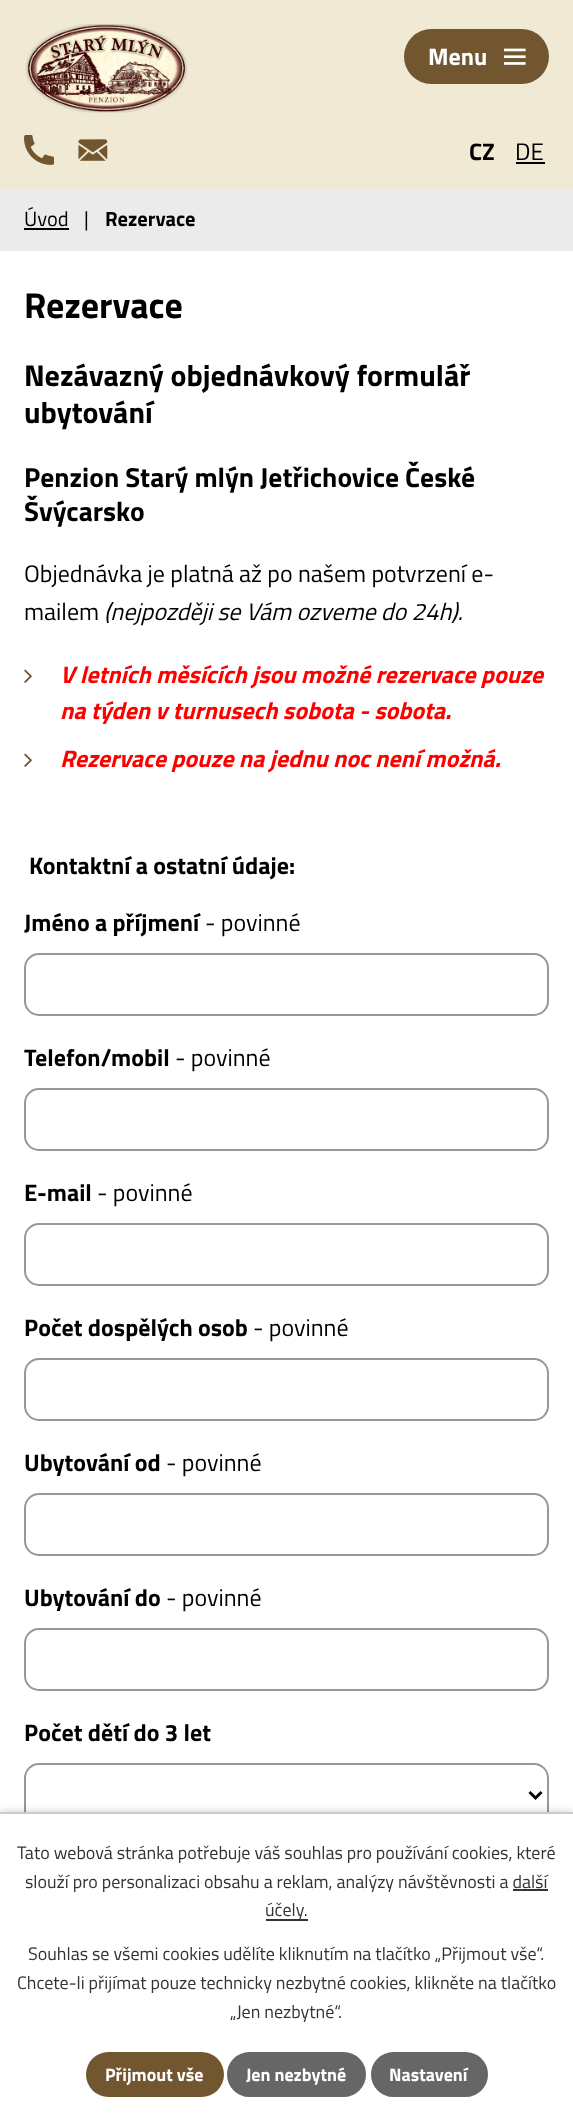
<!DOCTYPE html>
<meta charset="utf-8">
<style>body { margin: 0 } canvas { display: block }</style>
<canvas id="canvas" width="573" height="2118"></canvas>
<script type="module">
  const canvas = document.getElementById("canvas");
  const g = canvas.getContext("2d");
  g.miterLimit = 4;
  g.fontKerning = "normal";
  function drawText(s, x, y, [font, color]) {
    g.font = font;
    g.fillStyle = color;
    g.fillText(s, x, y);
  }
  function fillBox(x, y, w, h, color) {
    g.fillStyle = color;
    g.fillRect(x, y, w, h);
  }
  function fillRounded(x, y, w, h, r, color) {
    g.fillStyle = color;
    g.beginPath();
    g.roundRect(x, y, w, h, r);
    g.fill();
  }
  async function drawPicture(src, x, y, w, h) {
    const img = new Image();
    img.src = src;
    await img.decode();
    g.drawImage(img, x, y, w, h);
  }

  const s1 = ["bold 24px Titillium Web", "#FFFFFF"];
  const s2 = ["bold 24px Titillium Web", "#000000"];
  const s3 = ["24px Titillium Web", "#000000"];
  const s4 = ["20.5px Titillium Web", "#000000"];
  const s5 = ["bold 20.5px Titillium Web", "#000000"];
  const s6 = ["bold 36px Titillium Web", "#000000"];
  const s7 = ["bold 30px Titillium Web", "#000000"];
  const s8 = ["bold 27.6px Titillium Web", "#000000"];
  const s9 = ["italic 24px Titillium Web", "#000000"];
  const s10 = ["italic bold 24px Titillium Web", "#FF0000"];
  const s11 = ["18px Titillium Web", "#333333"];
  const s12 = ["bold 18px Titillium Web", "#FFFFFF"];

  fillBox(0, 0, 573, 2118, "#FFFFFF");
  fillBox(0, 0, 573, 189, "#F0EAD5");
  fillRounded(404, 29, 145, 55, 27.5, "#71562F");
  drawText("Menu", 428, 65, s1);
  await drawPicture("pic1.png", 504, 48, 22, 17);
  await drawPicture("pic2.png", 25, 24, 163, 89);
  await drawPicture("pic3.png", 24, 135, 30, 30);
  await drawPicture("pic4.png", 78, 139, 30, 22);
  drawText("CZ", 469, 160, s2);
  fillBox(516, 162, 29, 2, "#000000");
  drawText("DE", 515, 160, s3);
  fillBox(0, 189, 573, 62, "#EBEBEB");
  drawText("Úvod", 24, 226, s4);
  fillBox(24, 228, 45, 2, "#000000");
  drawText("|", 84, 226, s4);
  drawText("Rezervace", 105, 226, s5);
  drawText("Rezervace", 24, 318, s6);
  drawText("Nezávazný objednávkový formulář", 24, 386, s7);
  drawText("ubytování", 24, 423, s7);
  drawText("Penzion Starý mlýn Jetřichovice České", 24, 487, s8);
  drawText("Švýcarsko", 24, 521, s8);
  drawText("Objednávka je platná až po našem potvrzení e-", 24, 582, s3);
  drawText("mailem", 24, 620, s3);
  drawText("(nejpozději se Vám ozveme do 24h).", 104, 620, s9);
  await drawPicture("pic5.png", 24, 669, 8, 14);
  drawText("V letních měsících jsou možné rezervace pouze", 60, 683, s10);
  drawText("na týden v turnusech sobota - sobota.", 60, 719, s10);
  await drawPicture("pic5.png", 24, 753, 8, 14);
  drawText("Rezervace pouze na jednu noc není možná.", 60, 767, s10);
  drawText("Kontaktní a ostatní údaje:", 29, 874, s2);
  drawText("Jméno a příjmení", 24, 931, s2);
  drawText("- povinné", 205, 931, s3);
  g.beginPath();
  g.roundRect(25, 954, 523, 61, 14);
  g.strokeStyle = "#95989A";
  g.lineWidth = 2;
  g.stroke();
  drawText("Telefon/mobil", 24, 1066, s2);
  drawText("- povinné", 175, 1066, s3);
  g.beginPath();
  g.roundRect(25, 1089, 523, 61, 14);
  g.stroke();
  drawText("E-mail", 24, 1201, s2);
  drawText("- povinné", 97, 1201, s3);
  g.beginPath();
  g.roundRect(25, 1224, 523, 61, 14);
  g.stroke();
  drawText("Počet dospělých osob", 24, 1336, s2);
  drawText("- povinné", 253, 1336, s3);
  g.beginPath();
  g.roundRect(25, 1359, 523, 61, 14);
  g.stroke();
  drawText("Ubytování od", 24, 1471, s2);
  drawText("- povinné", 166, 1471, s3);
  g.beginPath();
  g.roundRect(25, 1494, 523, 61, 14);
  g.stroke();
  drawText("Ubytování do", 24, 1606, s2);
  drawText("- povinné", 166, 1606, s3);
  g.beginPath();
  g.roundRect(25, 1629, 523, 61, 14);
  g.stroke();
  drawText("Počet dětí do 3 let", 24, 1741, s2);
  g.beginPath();
  g.roundRect(25, 1764, 523, 64, 14);
  g.stroke();
  g.beginPath();
  g.moveTo(529.5, 1792);
  g.lineTo(535.5, 1798);
  g.lineTo(541.5, 1792);
  g.strokeStyle = "#000000";
  g.lineWidth = 3;
  g.stroke();
  g.fillStyle = "rgba(0, 0, 0, 0.2)";
  g.filter = "blur(4px)";
  g.beginPath();
  g.rect(0, 1812, 573, 306);
  g.fill();
  g.filter = "none";
  fillBox(0, 1814, 573, 304, "#FFFFFF");
  fillBox(0, 1812, 573, 2, "#CCCCCC");
  drawText("Tato webová stránka potřebuje váš souhlas pro používání cookies, které", 17, 1859, s11);
  drawText("slouží pro personalizaci obsahu a reklam, analýzy návštěvnosti a další", 25, 1888, s11);
  fillBox(266, 1919, 42, 2, "#333333");
  drawText("účely.", 265, 1916, s11);
  fillBox(513, 1889, 35, 2, "#333333");
  drawText("Souhlas se všemi cookies udělíte kliknutím na tlačítko „Přijmout vše“.", 28, 1960, s11);
  drawText("Chcete-li přijímat pouze technicky nezbytné cookies, klikněte na tlačítko", 17, 1989, s11);
  drawText("„Jen nezbytné“.", 230, 2018, s11);
  fillRounded(86, 2052, 138, 45, 22.5, "#71562F");
  drawText("Přijmout vše", 105, 2081, s12);
  g.fillStyle = "#666666";
  g.beginPath();
  g.roundRect(228, 2053, 137, 43, 21.5);
  g.fill();
  g.strokeStyle = "#666666";
  g.lineWidth = 2;
  g.stroke();
  drawText("Jen nezbytné", 246, 2081, s12);
  g.fillStyle = "#666666";
  g.beginPath();
  g.roundRect(372, 2053, 115, 43, 21.5);
  g.fill();
  g.stroke();
  drawText("Nastavení", 389, 2081, s12);
</script>
